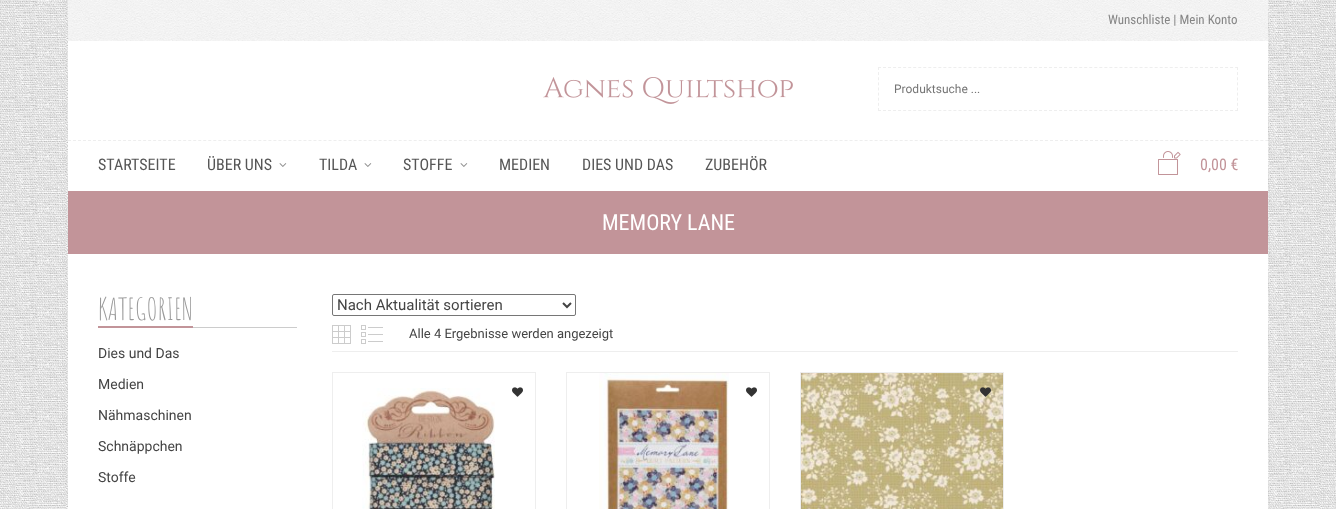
<!DOCTYPE html>
<meta charset="utf-8">
<style>body { margin: 0 } canvas { display: block }</style>
<canvas id="canvas" width="1336" height="509"></canvas>
<script type="module">
  const canvas = document.getElementById("canvas");
  const g = canvas.getContext("2d");
  g.miterLimit = 4;
  g.fontKerning = "normal";
  function drawText(s, x, y, [font, color]) {
    g.font = font;
    g.fillStyle = color;
    g.fillText(s, x, y);
  }
  function fillBox(x, y, w, h, color) {
    g.fillStyle = color;
    g.fillRect(x, y, w, h);
  }
  async function drawPicture(src, x, y, w, h) {
    const img = new Image();
    img.src = src;
    await img.decode();
    g.drawImage(img, x, y, w, h);
  }

  const s1 = ["13px Roboto Condensed", "#858585"];
  const s2 = ["12px Roboto", "#757575"];
  const s3 = ["16px Roboto Condensed", "#565656"];
  const s4 = ["16px Roboto Condensed", "#C29499"];
  const s5 = ["22px Roboto Condensed", "#FFFFFF"];
  const s6 = ["30px Amatic SC", "#999999"];
  const s7 = ["14px Roboto", "#444444"];
  const s8 = ["15px Roboto", "#444444"];
  const s9 = ["13px Roboto", "#444444"];

  fillBox(0, 0, 1336, 509, "#FFFFFF");
  await drawPicture("pic1.png", 0, 0, 1336, 509);
  fillBox(68, 41, 1200, 468, "#FFFFFF");
  await drawPicture("pic2.png", 68, 0, 1200, 41);
  drawText("Wunschliste | Mein Konto", 1108, 24, s1);
  g.beginPath();
  g.moveTo(68, 140.5);
  g.lineTo(1268, 140.5);
  g.strokeStyle = "#EEEEEE";
  g.setLineDash([3, 2.01]);
  g.stroke();
  await drawPicture("pic3.png", 543, 77, 250, 27);
  g.beginPath();
  g.moveTo(878, 67.5);
  g.lineTo(1238, 67.5);
  g.setLineDash([3, 2.03]);
  g.stroke();
  g.beginPath();
  g.moveTo(1237.5, 67);
  g.lineTo(1237.5, 111);
  g.setLineDash([3, 2.12]);
  g.stroke();
  g.beginPath();
  g.moveTo(878, 110.5);
  g.lineTo(1238, 110.5);
  g.setLineDash([3, 2.03]);
  g.stroke();
  g.beginPath();
  g.moveTo(878.5, 67);
  g.lineTo(878.5, 111);
  g.setLineDash([3, 2.12]);
  g.stroke();
  drawText("Produktsuche ...", 894, 93, s2);
  drawText("STARTSEITE", 98, 170, s3);
  drawText("ÜBER UNS", 207, 170, s3);
  await drawPicture("pic4.png", 279, 163, 8, 4);
  drawText("TILDA", 319, 170, s3);
  await drawPicture("pic4.png", 364, 163, 8, 4);
  drawText("STOFFE", 403, 170, s3);
  await drawPicture("pic4.png", 460, 163, 8, 4);
  drawText("MEDIEN", 499, 170, s3);
  drawText("DIES UND DAS", 582, 170, s3);
  drawText("ZUBEHÖR", 705, 170, s3);
  await drawPicture("pic5.png", 1158, 151, 23, 24);
  drawText("0,00 €", 1200, 170, s4);
  fillBox(68, 191, 1200, 63, "#C29499");
  drawText("MEMORY LANE", 602, 230, s5);
  fillBox(193, 327, 104, 1, "#CCCCCC");
  fillBox(98, 326, 95, 2, "#C29499");
  drawText("KATEGORIEN", 98, 320, s6);
  drawText("Dies und Das", 98, 358, s7);
  drawText("Medien", 98, 389, s7);
  drawText("Nähmaschinen", 98, 420, s7);
  drawText("Schnäppchen", 98, 451, s7);
  drawText("Stoffe", 98, 482, s7);
  g.beginPath();
  g.roundRect(332.5, 294.5, 243, 21, 1.5);
  g.strokeStyle = "#767676";
  g.setLineDash([]);
  g.stroke();
  g.beginPath();
  g.moveTo(563, 303);
  g.lineTo(567, 307);
  g.lineTo(571, 303);
  g.strokeStyle = "#444444";
  g.lineWidth = 2;
  g.stroke();
  drawText("Nach Aktualität sortieren", 337, 310, s8);
  await drawPicture("pic6.png", 332, 325, 19, 19);
  await drawPicture("pic7.png", 361, 325, 22, 19);
  drawText("Alle 4 Ergebnisse werden angezeigt", 409, 338, s9);
  fillBox(332, 351, 906, 1, "#EEEEEE");
  g.strokeStyle = "#EEEEEE";
  g.lineWidth = 1;
  g.strokeRect(332.5, 372.5, 203, 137);
  await drawPicture("pic8.png", 362, 388, 133, 121);
  await drawPicture("pic9.png", 512, 387, 11, 10);
  g.strokeRect(566.5, 372.5, 203, 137);
  await drawPicture("pic10.png", 599, 373, 130, 136);
  await drawPicture("pic9.png", 746, 387, 11, 10);
  g.strokeRect(800.5, 372.5, 203, 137);
  await drawPicture("pic11.png", 801, 373, 202, 136);
  await drawPicture("pic12.png", 980, 387, 11, 10);
</script>
